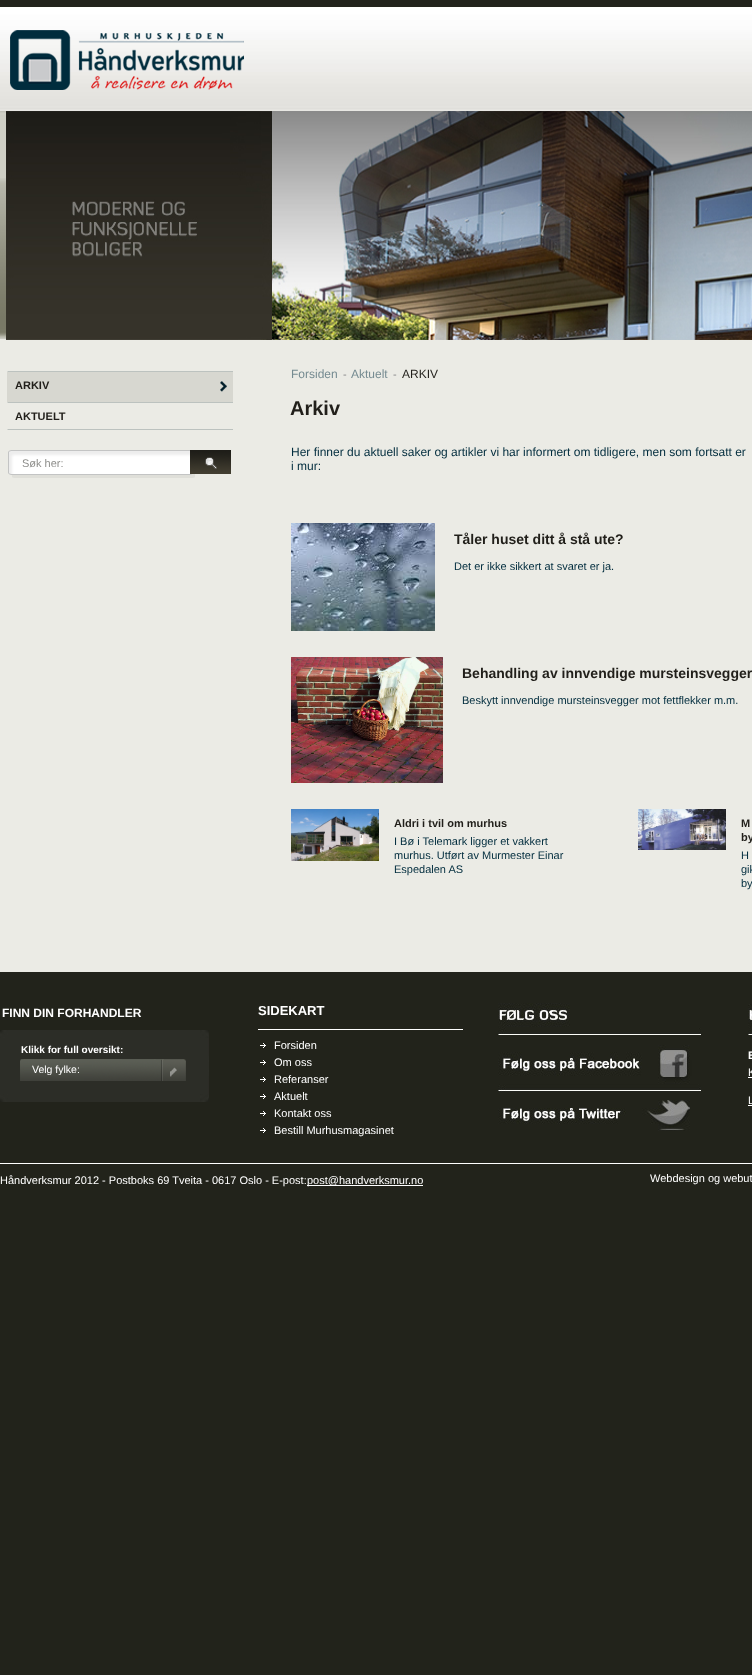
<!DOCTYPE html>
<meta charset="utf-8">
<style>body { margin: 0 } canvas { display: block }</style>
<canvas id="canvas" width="752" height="1675"></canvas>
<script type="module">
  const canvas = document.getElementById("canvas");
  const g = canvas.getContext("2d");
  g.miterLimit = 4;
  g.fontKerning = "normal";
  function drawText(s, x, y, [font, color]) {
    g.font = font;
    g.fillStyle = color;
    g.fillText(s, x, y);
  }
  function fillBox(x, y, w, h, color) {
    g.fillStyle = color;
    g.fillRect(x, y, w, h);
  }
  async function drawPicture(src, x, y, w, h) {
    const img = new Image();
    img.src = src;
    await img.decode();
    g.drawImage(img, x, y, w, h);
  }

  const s1 = ["bold 11px Liberation Sans", "#211F1A"];
  const s2 = ["11px Liberation Sans", "#8E8E8B"];
  const s3 = ["12px Liberation Sans", "#758B91"];
  const s4 = ["11px Liberation Sans", "#878787"];
  const s5 = ["12px Liberation Sans", "#211F1A"];
  const s6 = ["bold 20px Liberation Sans", "#211F1A"];
  const s7 = ["12px Liberation Sans", "#002C3D"];
  const s8 = ["bold 14px Liberation Sans", "#211F1A"];
  const s9 = ["11px Liberation Sans", "#002C3D"];
  const s10 = ["bold 12px Liberation Sans", "#FFFFFF"];
  const s11 = ["bold 10px Liberation Sans", "#FFFFFF"];
  const s12 = ["10.5px Liberation Sans", "#FFFFFF"];
  const s13 = ["bold 13px Liberation Sans", "#FFFFFF"];
  const s14 = ["11px Liberation Sans", "#FFFFFF"];
  const s15 = ["bold 11px Liberation Sans", "#FFFFFF"];

  fillBox(0, 0, 752, 1675, "#22231B");
  await drawPicture("pic1.png", 0, 7, 752, 104);
  await drawPicture("pic2.png", 10, 30, 234, 60);
  fillBox(0, 339, 752, 633, "#EBEBE5");
  await drawPicture("pic3.png", 0, 111, 6, 228);
  await drawPicture("pic4.png", 0, 178, 6, 161);
  await drawPicture("pic5.png", 6, 111, 746, 229);
  await drawPicture("pic6.png", 7, 371, 226, 1);
  fillBox(7, 372, 226, 30, "#D7D7D0");
  drawText("ARKIV", 15, 389, s1);
  await drawPicture("pic7.png", 220, 381, 7, 11);
  await drawPicture("pic6.png", 7, 402, 226, 1);
  drawText("AKTUELT", 15, 420, s1);
  await drawPicture("pic6.png", 7, 429, 226, 1);
  await drawPicture("pic8.png", 8, 450, 187, 28);
  drawText("Søk her:", 22, 467, s2);
  await drawPicture("pic9.png", 190, 450, 41, 24);
  drawText("Forsiden", 291, 378, s3);
  drawText("-", 343, 378, s4);
  drawText("Aktuelt", 351, 378, s3);
  drawText("-", 393, 378, s4);
  drawText("ARKIV", 402, 378, s5);
  drawText("Arkiv", 290, 415, s6);
  drawText("Her finner du aktuell saker og artikler vi har informert om tidligere, men som fortsatt er", 291, 456, s7);
  drawText("i mur:", 291, 470, s7);
  await drawPicture("pic10.png", 291, 523, 144, 108);
  drawText("Tåler huset ditt å stå ute?", 454, 544, s8);
  drawText("Det er ikke sikkert at svaret er ja.", 454, 570, s9);
  await drawPicture("pic11.png", 291, 657, 152, 126);
  drawText("Behandling av innvendige mursteinsvegger", 462, 678, s8);
  drawText("Beskytt innvendige mursteinsvegger mot fettflekker m.m.", 462, 704, s9);
  await drawPicture("pic12.png", 291, 809, 88, 52);
  drawText("Aldri i tvil om murhus", 394, 827, s1);
  drawText("I Bø i Telemark ligger et vakkert", 394, 845, s9);
  drawText("murhus. Utført av Murmester Einar", 394, 859, s9);
  drawText("Espedalen AS", 394, 873, s9);
  await drawPicture("pic13.png", 638, 809, 88, 41);
  drawText("M", 741, 827, s1);
  drawText("by", 741, 841, s1);
  drawText("H", 741, 859, s9);
  drawText("gik", 741, 873, s9);
  drawText("by", 741, 887, s9);
  drawText("FINN DIN FORHANDLER", 2, 1017, s10);
  await drawPicture("pic14.png", 0, 1030, 209, 72);
  drawText("Klikk for full oversikt:", 21, 1053, s11);
  await drawPicture("pic15.png", 20, 1059, 150, 22);
  g.save();
  g.beginPath();
  g.rect(32, 1063, 150, 12);
  g.clip();
  drawText("Velg fylke:", 32, 1073, s12);
  g.restore();
  await drawPicture("pic16.png", 170, 1059, 16, 22);
  drawText("SIDEKART", 258, 1015, s13);
  fillBox(258, 1029, 205, 1, "#FFFFFF");
  await drawPicture("pic17.png", 260, 1043, 6, 5);
  drawText("Forsiden", 274, 1049, s14);
  await drawPicture("pic17.png", 260, 1060, 6, 5);
  drawText("Om oss", 274, 1066, s14);
  await drawPicture("pic17.png", 260, 1077, 6, 5);
  drawText("Referanser", 274, 1083, s14);
  await drawPicture("pic17.png", 260, 1094, 6, 5);
  drawText("Aktuelt", 274, 1100, s14);
  await drawPicture("pic17.png", 260, 1111, 6, 5);
  drawText("Kontakt oss", 274, 1117, s14);
  await drawPicture("pic17.png", 260, 1128, 6, 5);
  drawText("Bestill Murhusmagasinet", 274, 1134, s14);
  await drawPicture("pic18.png", 498, 1003, 203, 32);
  await drawPicture("pic19.png", 498, 1045, 203, 47);
  await drawPicture("pic20.png", 498, 1100, 192, 31);
  await drawPicture("pic21.png", 748, 1004, 4, 31);
  drawText("E", 748, 1059, s15);
  drawText("K", 748, 1076, s14);
  fillBox(748, 1077, 4, 1, "#FFFFFF");
  drawText("L", 748, 1104, s14);
  fillBox(748, 1105, 4, 1, "#FFFFFF");
  fillBox(0, 1163, 752, 1, "#FFFFFF");
  drawText("Håndverksmur 2012 - Postboks 69 Tveita - 0617 Oslo - E-post:", 0, 1184, s14);
  fillBox(307, 1185, 116, 1, "#FFFFFF");
  drawText("post@handverksmur.no", 307, 1184, s14);
  drawText("Webdesign og webut", 650, 1182, s14);
</script>
